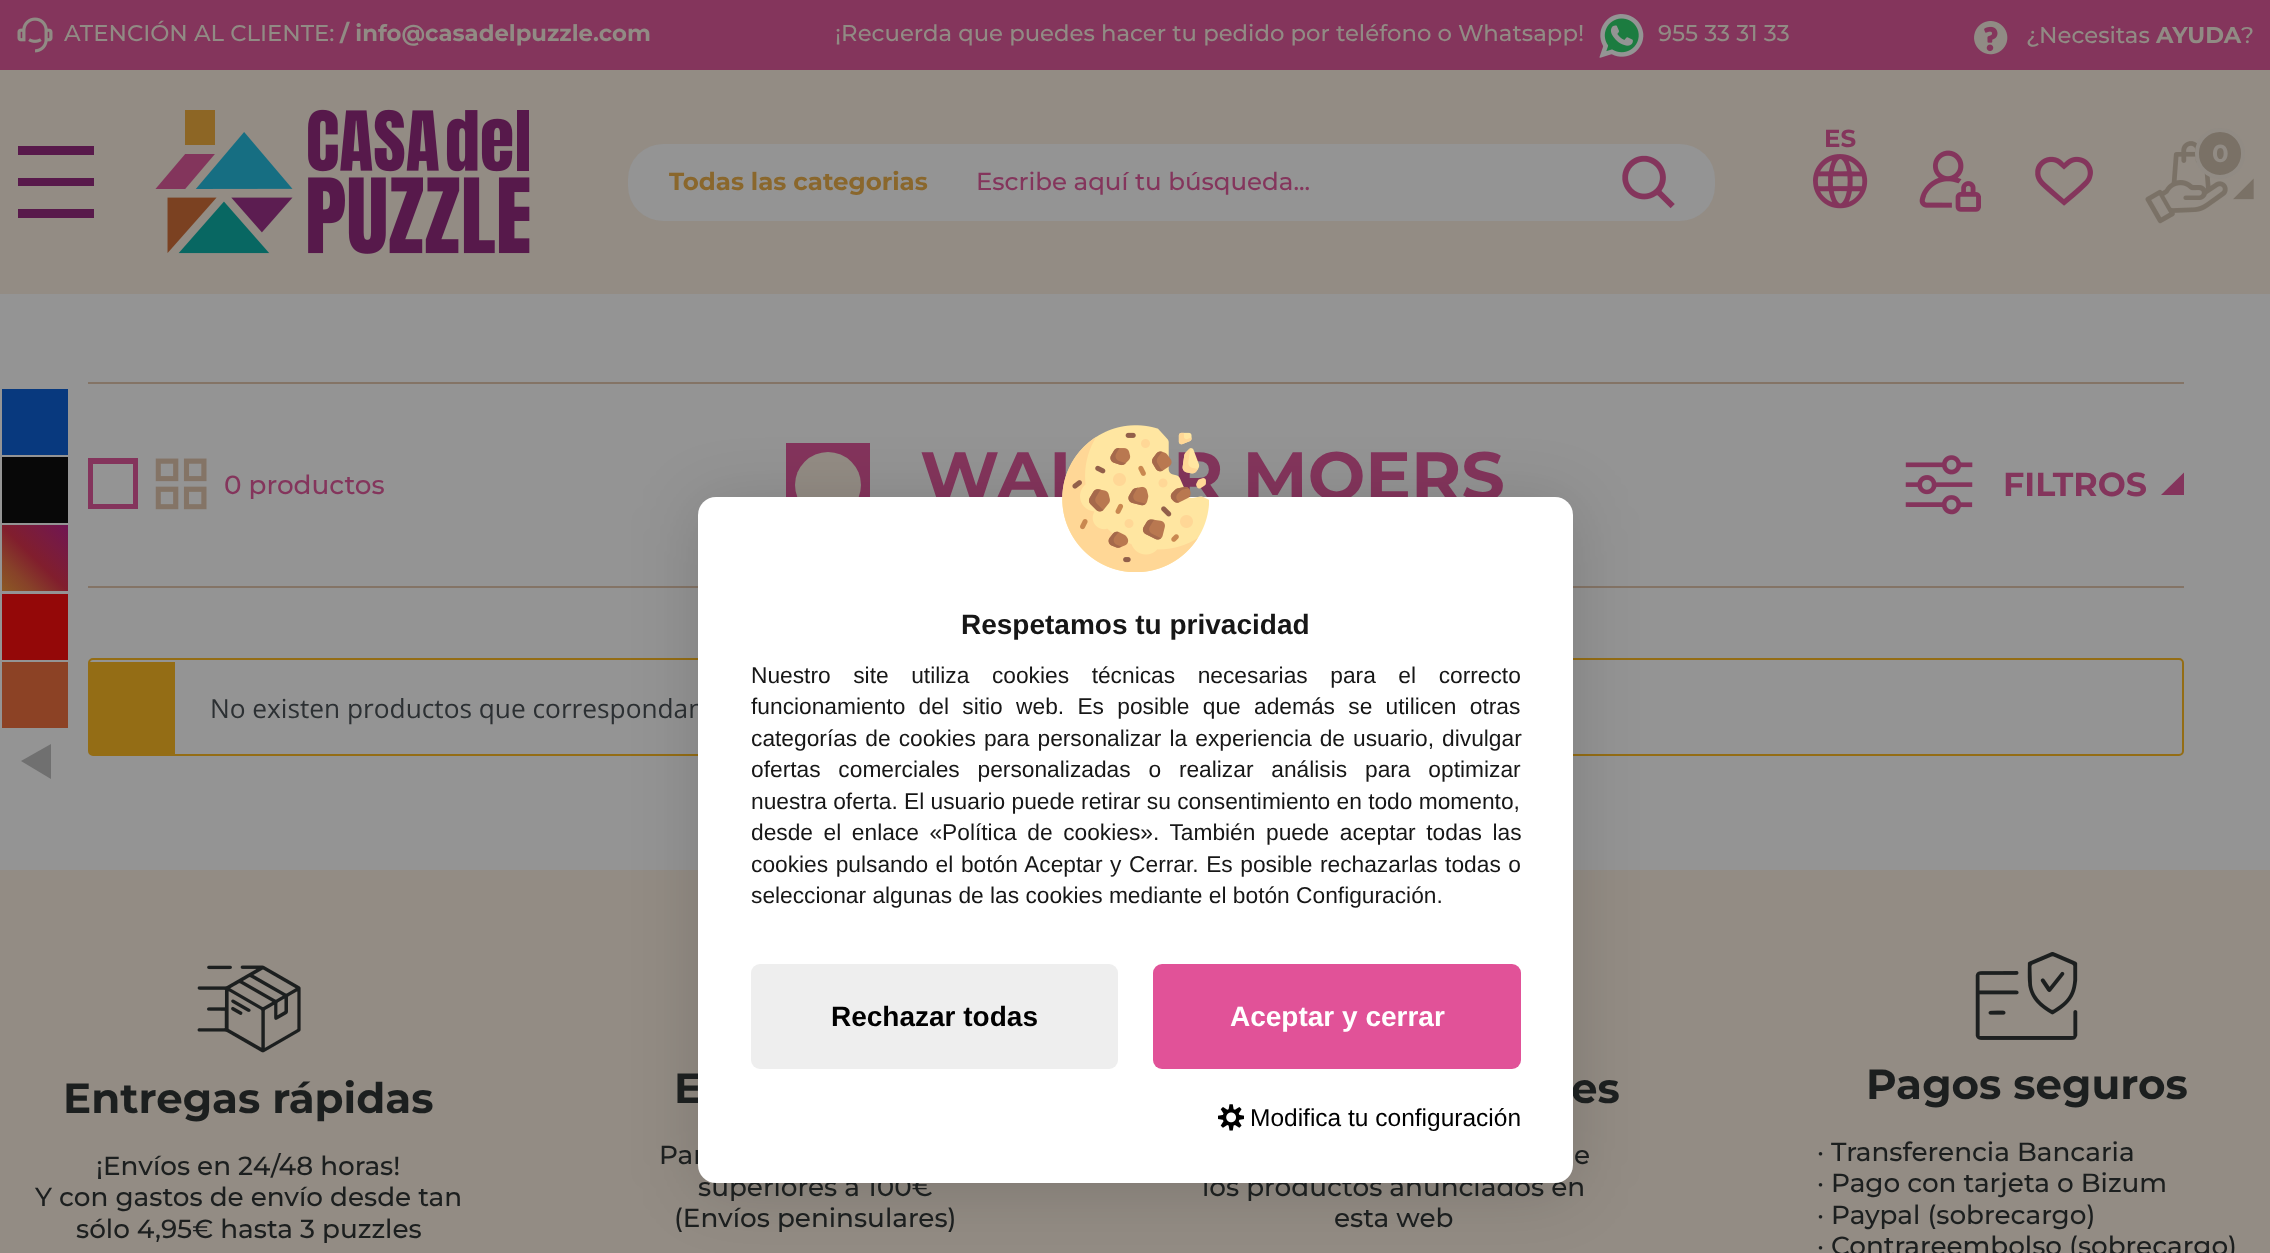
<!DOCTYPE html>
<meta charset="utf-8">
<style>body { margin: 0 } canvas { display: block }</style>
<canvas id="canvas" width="2270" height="1253"></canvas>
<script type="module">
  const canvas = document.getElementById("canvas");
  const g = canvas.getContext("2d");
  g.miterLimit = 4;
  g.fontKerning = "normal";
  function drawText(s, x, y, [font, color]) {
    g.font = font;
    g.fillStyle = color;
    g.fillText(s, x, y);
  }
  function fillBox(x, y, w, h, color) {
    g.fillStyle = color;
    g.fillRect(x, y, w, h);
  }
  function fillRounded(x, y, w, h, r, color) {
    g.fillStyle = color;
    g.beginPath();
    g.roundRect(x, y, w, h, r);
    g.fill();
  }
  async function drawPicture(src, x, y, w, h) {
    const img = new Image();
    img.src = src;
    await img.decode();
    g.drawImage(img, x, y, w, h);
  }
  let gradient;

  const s1 = ["500 22.75px Montserrat", "#918B84"];
  const s2 = ["bold 22.75px Montserrat", "#918B84"];
  const s3 = ["bold 24.5px Montserrat", "#8A672C"];
  const s4 = ["500 24.5px Montserrat", "#84355C"];
  const s5 = ["bold 24.5px Montserrat", "#84355C"];
  const s6 = ["bold 24.5px Montserrat", "#918B84"];
  const s7 = ["500 26.25px Montserrat", "#84355C"];
  const s8 = ["bold 68.25px Montserrat", "#84355C"];
  const s9 = ["bold 33.25px Montserrat", "#84355C"];
  const s10 = ["26.25px Open Sans", "#2C3033"];
  const s11 = ["bold 42px Montserrat", "#1C1F1F"];
  const s12 = ["500 26.25px Montserrat", "#1C1F1F"];
  const s13 = ["bold 28px Liberation Sans", "#171717"];
  const s14 = ["22.75px Liberation Sans", "#171717"];
  const s15 = ["bold 28px Liberation Sans", "#000000"];
  const s16 = ["bold 28px Liberation Sans", "#FFFFFF"];
  const s17 = ["24.5px Liberation Sans", "#000000"];

  fillBox(0, 0, 2270, 1253, "#938C84");
  fillBox(0, 0, 2270, 70, "#84355C");
  await drawPicture("pic1.png", 17, 17, 36, 36);
  drawText("ATENCIÓN AL CLIENTE:", 64, 41, s1);
  drawText("/ info@casadelpuzzle.com", 340, 41, s2);
  drawText("¡Recuerda que puedes hacer tu pedido por teléfono o Whatsapp!", 835, 41, s1);
  gradient = g.createRadialGradient(1621, 36, 0, 1621, 36, 31);
  gradient.addColorStop(0.6, "#1C7C40");
  gradient.addColorStop(0.6, "#84355C");
  g.fillStyle = gradient;
  g.fillRect(1602, 17, 38, 38);
  fillBox(1605, 46, 7, 6, "#1C7C40");
  await drawPicture("pic2.png", 1599, 14, 45, 44);
  drawText("955 33 31 33", 1658, 41, s1);
  await drawPicture("pic3.png", 1974, 21, 34, 34);
  drawText("¿Necesitas", 2026, 43, s1);
  drawText("AYUDA", 2156, 43, s2);
  drawText("?", 2241, 43, s1);
  g.fillStyle = "#58194B";
  g.beginPath();
  g.moveTo(18, 214);
  g.lineTo(18, 209);
  g.lineTo(94, 209);
  g.lineTo(94, 218);
  g.lineTo(18, 218);
  g.closePath();
  g.moveTo(18, 182);
  g.lineTo(18, 178);
  g.lineTo(94, 178);
  g.lineTo(94, 186);
  g.lineTo(18, 186);
  g.closePath();
  g.moveTo(18, 150);
  g.lineTo(18, 146);
  g.lineTo(94, 146);
  g.lineTo(94, 155);
  g.lineTo(18, 155);
  g.closePath();
  g.fill();
  await drawPicture("pic4.png", 155, 109, 375, 145);
  fillRounded(628, 144, 1087, 77, 35, "#949494");
  g.save();
  g.beginPath();
  g.rect(669, 156, 259, 52);
  g.clip();
  drawText("Todas las categorias", 669, 190, s3);
  g.restore();
  drawText("Escribe aquí tu búsqueda...", 976, 190, s4);
  await drawPicture("pic5.png", 1622, 155, 53, 54);
  drawText("ES", 1824, 147, s5);
  await drawPicture("pic6.png", 1813, 154, 55, 55);
  await drawPicture("pic7.png", 1919, 150, 62, 62);
  await drawPicture("pic8.png", 2035, 156, 58, 50);
  await drawPicture("pic9.png", 2145, 141, 109, 83);
  g.fillStyle = "#7A7166";
  g.beginPath();
  g.roundRect(2197, 130, 46, 47, 23);
  g.fill();
  g.strokeStyle = "#918B84";
  g.lineWidth = 4;
  g.stroke();
  drawText("0", 2212, 162, s6);
  fillBox(0, 294, 2270, 576, "#949494");
  fillBox(2, 389, 66, 66, "#08397E");
  fillBox(2, 457, 66, 66, "#080808");
  gradient = g.createLinearGradient(1.8, 592, 68, 525);
  gradient.addColorStop(0, "#8C5A24");
  gradient.addColorStop(0.25, "#874129");
  gradient.addColorStop(0.5, "#811E2D");
  gradient.addColorStop(0.75, "#781B40");
  gradient.addColorStop(1, "#701553");
  g.fillStyle = gradient;
  g.fillRect(2, 525, 66, 66);
  fillBox(2, 594, 66, 66, "#940808");
  fillBox(2, 662, 66, 66, "#8C4225");
  g.fillStyle = "#707070";
  g.beginPath();
  g.moveTo(51, 744);
  g.lineTo(51, 779);
  g.lineTo(21, 761);
  g.closePath();
  g.fill();
  fillBox(88, 382, 2096, 2, "#847466");
  fillBox(88, 586, 2096, 2, "#847466");
  g.fillStyle = "#84345C";
  g.beginPath();
  g.moveTo(113, 504);
  g.lineTo(133, 504);
  g.lineTo(133, 464);
  g.lineTo(93, 464);
  g.lineTo(93, 504);
  g.closePath();
  g.moveTo(88, 484);
  g.lineTo(88, 458);
  g.lineTo(138, 458);
  g.lineTo(138, 509);
  g.lineTo(88, 509);
  g.closePath();
  g.fill();
  await drawPicture("pic10.png", 155, 458, 52, 52);
  drawText("0 productos", 224, 494, s7);
  fillBox(786, 443, 84, 54, "#84345C");
  g.fillStyle = "#938C84";
  g.beginPath();
  g.arc(828, 485, 33, 0, Math.PI * 2);
  g.fill();
  drawText("WAL", 920, 500, s8);
  drawText("R MOERS", 1173, 500, s8);
  await drawPicture("pic11.png", 1905, 455, 68, 60);
  drawText("FILTROS", 2003, 496, s9);
  g.fillStyle = "#84345C";
  g.beginPath();
  g.moveTo(2184, 495);
  g.lineTo(2161, 495);
  g.lineTo(2184, 472.5);
  g.closePath();
  g.fill();
  g.beginPath();
  g.roundRect(89, 659, 2094, 96, 4);
  g.strokeStyle = "#946D15";
  g.lineWidth = 2;
  g.stroke();
  fillBox(90, 662, 85, 92, "#946D15");
  drawText("No existen productos que correspondan", 210, 718, s10);
  g.fillStyle = "rgba(0, 0, 0, 0.15)";
  g.filter = "blur(33px)";
  g.beginPath();
  g.roundRect(698, 504, 875, 686, 18);
  g.fill();
  g.filter = "none";
  drawText("E", 674, 1103, s11);
  drawText("Par", 659, 1164, s12);
  drawText("superiores a 100€", 698, 1196, s12);
  drawText("es", 1571, 1103, s11);
  drawText("los productos anunciados en", 1202, 1196, s12);
  fillRounded(698, 497, 875, 686, 18, "#FFFFFF");
  await drawPicture("pic12.png", 1062, 425, 147, 147);
  drawText("Respetamos tu privacidad", 961, 634, s13);
  g.wordSpacing = "16.25px";
  drawText("Nuestro site utiliza cookies técnicas necesarias para el correcto", 751, 683, s14);
  g.wordSpacing = "7px";
  drawText("funcionamiento del sitio web. Es posible que además se utilicen otras", 751, 714, s14);
  g.wordSpacing = "1.75px";
  drawText("categorías de cookies para personalizar la experiencia de usuario, divulgar", 751, 746, s14);
  g.wordSpacing = "11.5px";
  drawText("ofertas comerciales personalizadas o realizar análisis para optimizar", 751, 777, s14);
  g.wordSpacing = "0px";
  drawText("nuestra oferta. El usuario puede retirar su consentimiento en todo momento,", 751, 809, s14);
  g.wordSpacing = "4.25px";
  drawText("desde el enlace «Política de cookies». También puede aceptar todas las", 751, 840, s14);
  g.wordSpacing = "1.25px";
  drawText("cookies pulsando el botón Aceptar y Cerrar. Es posible rechazarlas todas o", 751, 872, s14);
  g.wordSpacing = "0px";
  drawText("seleccionar algunas de las cookies mediante el botón Configuración.", 751, 903, s14);
  fillRounded(751, 964, 367, 105, 9, "#EEEEEE");
  drawText("Rechazar todas", 831, 1026, s15);
  fillRounded(1153, 964, 368, 105, 9, "#E15298");
  drawText("Aceptar y cerrar", 1230, 1026, s16);
  await drawPicture("pic13.png", 1218, 1104, 26, 27);
  drawText("Modifica tu configuración", 1250, 1126, s17);
  await drawPicture("pic14.png", 197, 965, 104, 88);
  drawText("Entregas rápidas", 63, 1113, s11);
  drawText("¡Envíos en 24/48 horas!", 96, 1175, s12);
  drawText("Y con gastos de envío desde tan", 35, 1206, s12);
  drawText("sólo 4,95€ hasta 3 puzzles", 76, 1238, s12);
  drawText("(Envíos peninsulares)", 674, 1227, s12);
  drawText("e", 1574, 1164, s12);
  drawText("esta web", 1334, 1227, s12);
  await drawPicture("pic15.png", 1975, 952, 103, 88);
  drawText("Pagos seguros", 1866, 1099, s11);
  drawText("· Transferencia Bancaria", 1817, 1161, s12);
  drawText("· Pago con tarjeta o Bizum", 1817, 1192, s12);
  drawText("· Paypal (sobrecargo)", 1817, 1224, s12);
  drawText("· Contrareembolso (sobrecargo)", 1817, 1255, s12);
</script>
